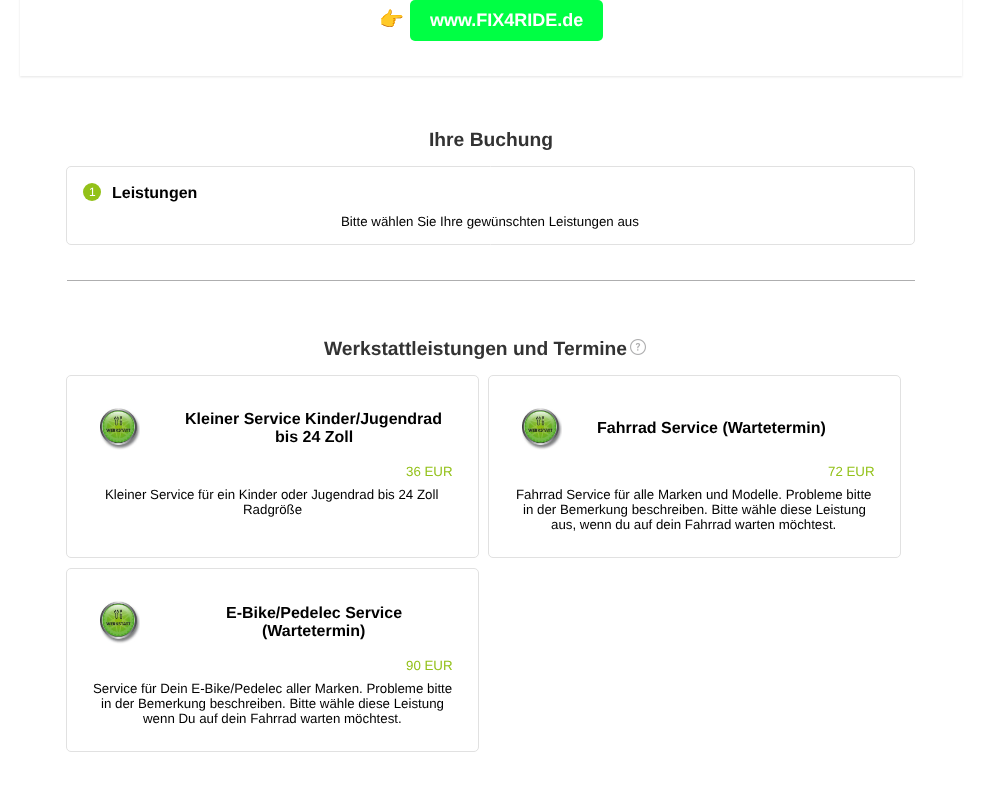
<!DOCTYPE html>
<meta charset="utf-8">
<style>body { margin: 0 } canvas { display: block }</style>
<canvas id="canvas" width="982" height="797"></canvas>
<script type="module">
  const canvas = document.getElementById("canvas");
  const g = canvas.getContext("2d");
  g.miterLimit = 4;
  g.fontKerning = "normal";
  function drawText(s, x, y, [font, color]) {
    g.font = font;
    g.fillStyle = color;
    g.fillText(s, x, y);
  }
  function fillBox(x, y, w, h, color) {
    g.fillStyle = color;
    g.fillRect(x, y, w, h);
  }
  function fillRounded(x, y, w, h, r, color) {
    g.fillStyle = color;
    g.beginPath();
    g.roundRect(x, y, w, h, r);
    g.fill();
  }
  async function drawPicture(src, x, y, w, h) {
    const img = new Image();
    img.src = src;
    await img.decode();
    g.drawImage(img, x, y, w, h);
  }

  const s1 = ["bold 20px Noto Color Emoji", "#00FF44"];
  const s2 = ["bold 18px Liberation Sans", "#FFFFFF"];
  const s3 = ["bold 19.25px Liberation Sans", "#333333"];
  const s4 = ["12px Liberation Sans", "#FFFFFF"];
  const s5 = ["bold 16px Liberation Sans", "#000000"];
  const s6 = ["13.3px Liberation Sans", "#000000"];
  const s7 = ["13.3px Liberation Sans", "#93C119"];

  fillBox(0, 0, 982, 797, "#FFFFFF");
  g.save();
  g.beginPath();
  g.moveTo(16, 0);
  g.lineTo(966, 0);
  g.lineTo(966, 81);
  g.lineTo(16, 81);
  g.closePath();
  g.moveTo(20, -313);
  g.lineTo(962, -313);
  g.lineTo(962, 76);
  g.lineTo(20, 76);
  g.closePath();
  g.clip("evenodd");
  g.fillStyle = "rgba(0, 0, 0, 0.1)";
  g.filter = "blur(1px)";
  g.beginPath();
  g.rect(20, -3, 942, 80);
  g.fill();
  g.filter = "none";
  g.restore();
  drawText("👉", 379, 26, s1);
  fillRounded(410, 0, 193, 41, 5, "#00FF44");
  drawText("www.FIX4RIDE.de", 430, 26, s2);
  fillBox(67, 280, 848, 1, "#AEAEAF");
  drawText("Ihre Buchung", 429, 146, s3);
  g.beginPath();
  g.roundRect(66.5, 166.5, 848, 78, 4.5);
  g.strokeStyle = "#E1E1E1";
  g.stroke();
  g.fillStyle = "#93C119";
  g.beginPath();
  g.arc(92, 192, 9, 0, Math.PI * 2);
  g.fill();
  drawText("1", 89, 196, s4);
  drawText("Leistungen", 112, 198, s5);
  drawText("Bitte wählen Sie Ihre gewünschten Leistungen aus", 341, 226, s6);
  drawText("Werkstattleistungen und Termine", 324, 355, s3);
  await drawPicture("pic1.png", 630, 339, 16, 16);
  g.beginPath();
  g.roundRect(66.5, 375.5, 412, 182, 4.5);
  g.stroke();
  await drawPicture("pic2.png", 100, 408, 40, 42);
  drawText("Kleiner Service Kinder/Jugendrad", 185, 424, s5);
  drawText("bis 24 Zoll", 275, 442, s5);
  drawText("36 EUR", 406, 476, s7);
  drawText("Kleiner Service für ein Kinder oder Jugendrad bis 24 Zoll", 105, 499, s6);
  drawText("Radgröße", 243, 514, s6);
  g.beginPath();
  g.roundRect(488.5, 375.5, 412, 182, 4.5);
  g.stroke();
  await drawPicture("pic3.png", 522, 408, 40, 42);
  drawText("Fahrrad Service (Wartetermin)", 597, 433, s5);
  drawText("72 EUR", 828, 476, s7);
  drawText("Fahrrad Service für alle Marken und Modelle. Probleme bitte", 516, 499, s6);
  drawText("in der Bemerkung beschreiben. Bitte wähle diese Leistung", 523, 514, s6);
  drawText("aus, wenn du auf dein Fahrrad warten möchtest.", 551, 529, s6);
  g.beginPath();
  g.roundRect(66.5, 568.5, 412, 183, 4.5);
  g.stroke();
  await drawPicture("pic4.png", 100, 601, 40, 43);
  drawText("E-Bike/Pedelec Service", 226, 618, s5);
  drawText("(Wartetermin)", 262, 636, s5);
  drawText("90 EUR", 406, 670, s7);
  drawText("Service für Dein E-Bike/Pedelec aller Marken. Probleme bitte", 93, 693, s6);
  drawText("in der Bemerkung beschreiben. Bitte wähle diese Leistung", 101, 708, s6);
  drawText("wenn Du auf dein Fahrrad warten möchtest.", 143, 723, s6);
</script>
